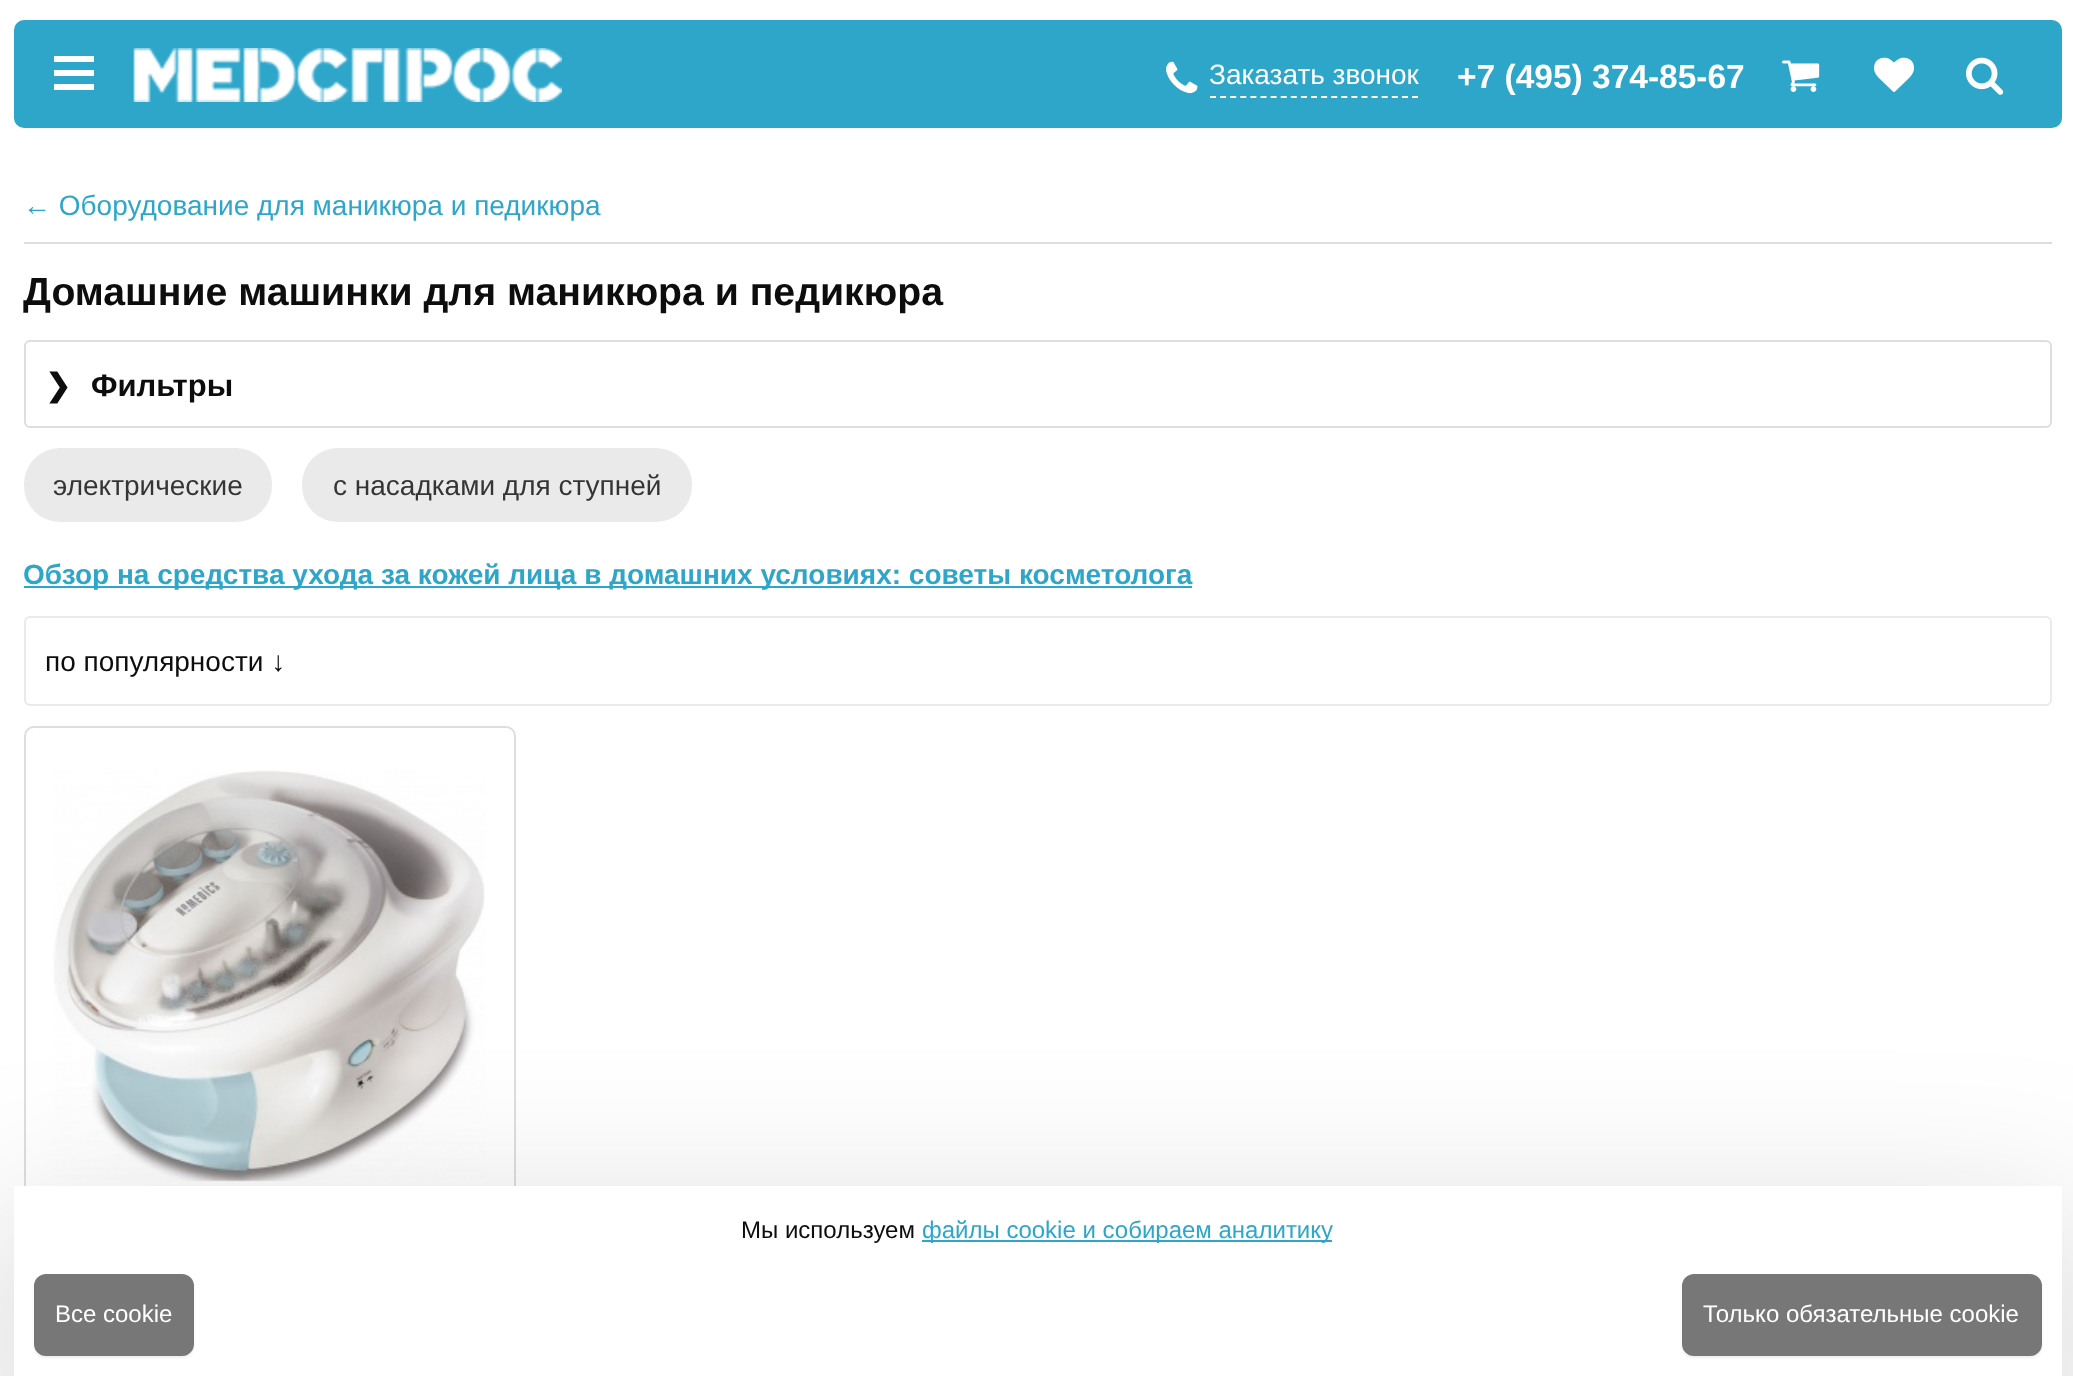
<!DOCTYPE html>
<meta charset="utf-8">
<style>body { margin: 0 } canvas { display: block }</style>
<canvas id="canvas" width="2073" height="1376"></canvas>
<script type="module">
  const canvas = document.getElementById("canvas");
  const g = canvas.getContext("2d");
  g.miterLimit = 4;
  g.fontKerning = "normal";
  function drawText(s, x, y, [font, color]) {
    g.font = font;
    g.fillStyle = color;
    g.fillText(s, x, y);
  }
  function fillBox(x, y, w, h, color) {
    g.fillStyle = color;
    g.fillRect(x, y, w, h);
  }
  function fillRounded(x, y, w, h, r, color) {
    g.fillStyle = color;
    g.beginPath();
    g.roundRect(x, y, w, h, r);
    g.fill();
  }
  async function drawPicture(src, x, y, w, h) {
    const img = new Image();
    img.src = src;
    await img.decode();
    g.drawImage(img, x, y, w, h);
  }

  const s1 = ["28px Liberation Sans", "#FFFFFF"];
  const s2 = ["bold 33.5px Liberation Sans", "#FFFFFF"];
  const s3 = ["28px Liberation Sans", "#2EA6CA"];
  const s4 = ["bold 39.2px Liberation Sans", "#0D0D0D"];
  const s5 = ["bold 31px DejaVu Sans", "#0D0D0D"];
  const s6 = ["bold 31px Liberation Sans", "#0D0D0D"];
  const s7 = ["28px Liberation Sans", "#353535"];
  const s8 = ["bold 28px Liberation Sans", "#2EA6CA"];
  const s9 = ["28px Liberation Sans", "#0D0D0D"];
  const s10 = ["24px Liberation Sans", "#0D0D0D"];
  const s11 = ["24px Liberation Sans", "#2EA6CA"];
  const s12 = ["24px Liberation Sans", "#FFFFFF"];

  fillBox(0, 0, 2073, 1376, "#FFFFFF");
  fillRounded(14, 20, 2048, 108, 10, "#2EA6CA");
  fillBox(54, 56, 40, 6, "#FFFFFF");
  fillBox(54, 70, 40, 6, "#FFFFFF");
  fillBox(54, 84, 40, 6, "#FFFFFF");
  await drawPicture("pic1.png", 133, 48, 429, 54);
  await drawPicture("pic2.png", 1166, 61, 32, 33);
  g.beginPath();
  g.moveTo(1210, 97);
  g.lineTo(1418, 97);
  g.strokeStyle = "#FFFFFF";
  g.lineWidth = 2;
  g.setLineDash([6, 4.1]);
  g.stroke();
  drawText("Заказать звонок", 1209, 84, s1);
  drawText("+7 (495) 374-85-67", 1457, 88, s2);
  await drawPicture("pic3.png", 1782, 60, 38, 32);
  await drawPicture("pic4.png", 1874, 57, 40, 35);
  await drawPicture("pic5.png", 1966, 57, 38, 38);
  fillBox(24, 242, 2028, 2, "#DEDEDE");
  drawText("← Оборудование для маникюра и педикюра", 23, 215, s3);
  drawText("Домашние машинки для маникюра и педикюра", 23, 305, s4);
  g.beginPath();
  g.roundRect(25, 341, 2026, 86, 5);
  g.strokeStyle = "#DEDEDE";
  g.setLineDash([]);
  g.stroke();
  drawText("❯", 45, 396, s5);
  drawText("Фильтры", 91, 396, s6);
  fillRounded(24, 448, 248, 74, 36, "#EAEAEA");
  drawText("электрические", 53, 495, s7);
  fillRounded(302, 448, 390, 74, 36, "#EAEAEA");
  drawText("с насадками для ступней", 333, 495, s7);
  fillBox(24, 586, 1168, 2, "#2EA6CA");
  drawText("Обзор на средства ухода за кожей лица в домашних условиях: советы косметолога", 23, 584, s8);
  g.beginPath();
  g.roundRect(25, 617, 2026, 88, 5);
  g.strokeStyle = "#EAEAEA";
  g.stroke();
  drawText("по популярности ↓", 45, 671, s9);
  g.beginPath();
  g.roundRect(25, 727, 490, 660, 9);
  g.strokeStyle = "#DEDEDE";
  g.stroke();
  await drawPicture("pic6.png", 53, 770, 432, 413);
  g.fillStyle = "rgba(0, 0, 0, 0.17)";
  g.filter = "blur(88px)";
  g.beginPath();
  g.rect(-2, 1230, 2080, 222);
  g.fill();
  g.filter = "none";
  fillBox(14, 1186, 2048, 190, "#FFFFFF");
  drawText("Мы используем", 741, 1238, s10);
  fillBox(922, 1240, 410, 2, "#2EA6CA");
  drawText("файлы cookie и собираем аналитику", 922, 1238, s11);
  g.fillStyle = "rgba(0, 0, 0, 0.07)";
  g.filter = "blur(1px)";
  g.beginPath();
  g.roundRect(34, 1276, 160, 82, 12);
  g.fill();
  g.filter = "none";
  g.fillStyle = "#777777";
  g.beginPath();
  g.roundRect(35, 1275, 158, 80, 11);
  g.fill();
  g.strokeStyle = "#777777";
  g.stroke();
  drawText("Все cookie", 55, 1322, s12);
  g.fillStyle = "rgba(0, 0, 0, 0.07)";
  g.filter = "blur(1px)";
  g.beginPath();
  g.roundRect(1682, 1276, 360, 82, 12);
  g.fill();
  g.filter = "none";
  g.fillStyle = "#777777";
  g.beginPath();
  g.roundRect(1683, 1275, 358, 80, 11);
  g.fill();
  g.stroke();
  drawText("Только обязательные cookie", 1703, 1322, s12);
</script>
